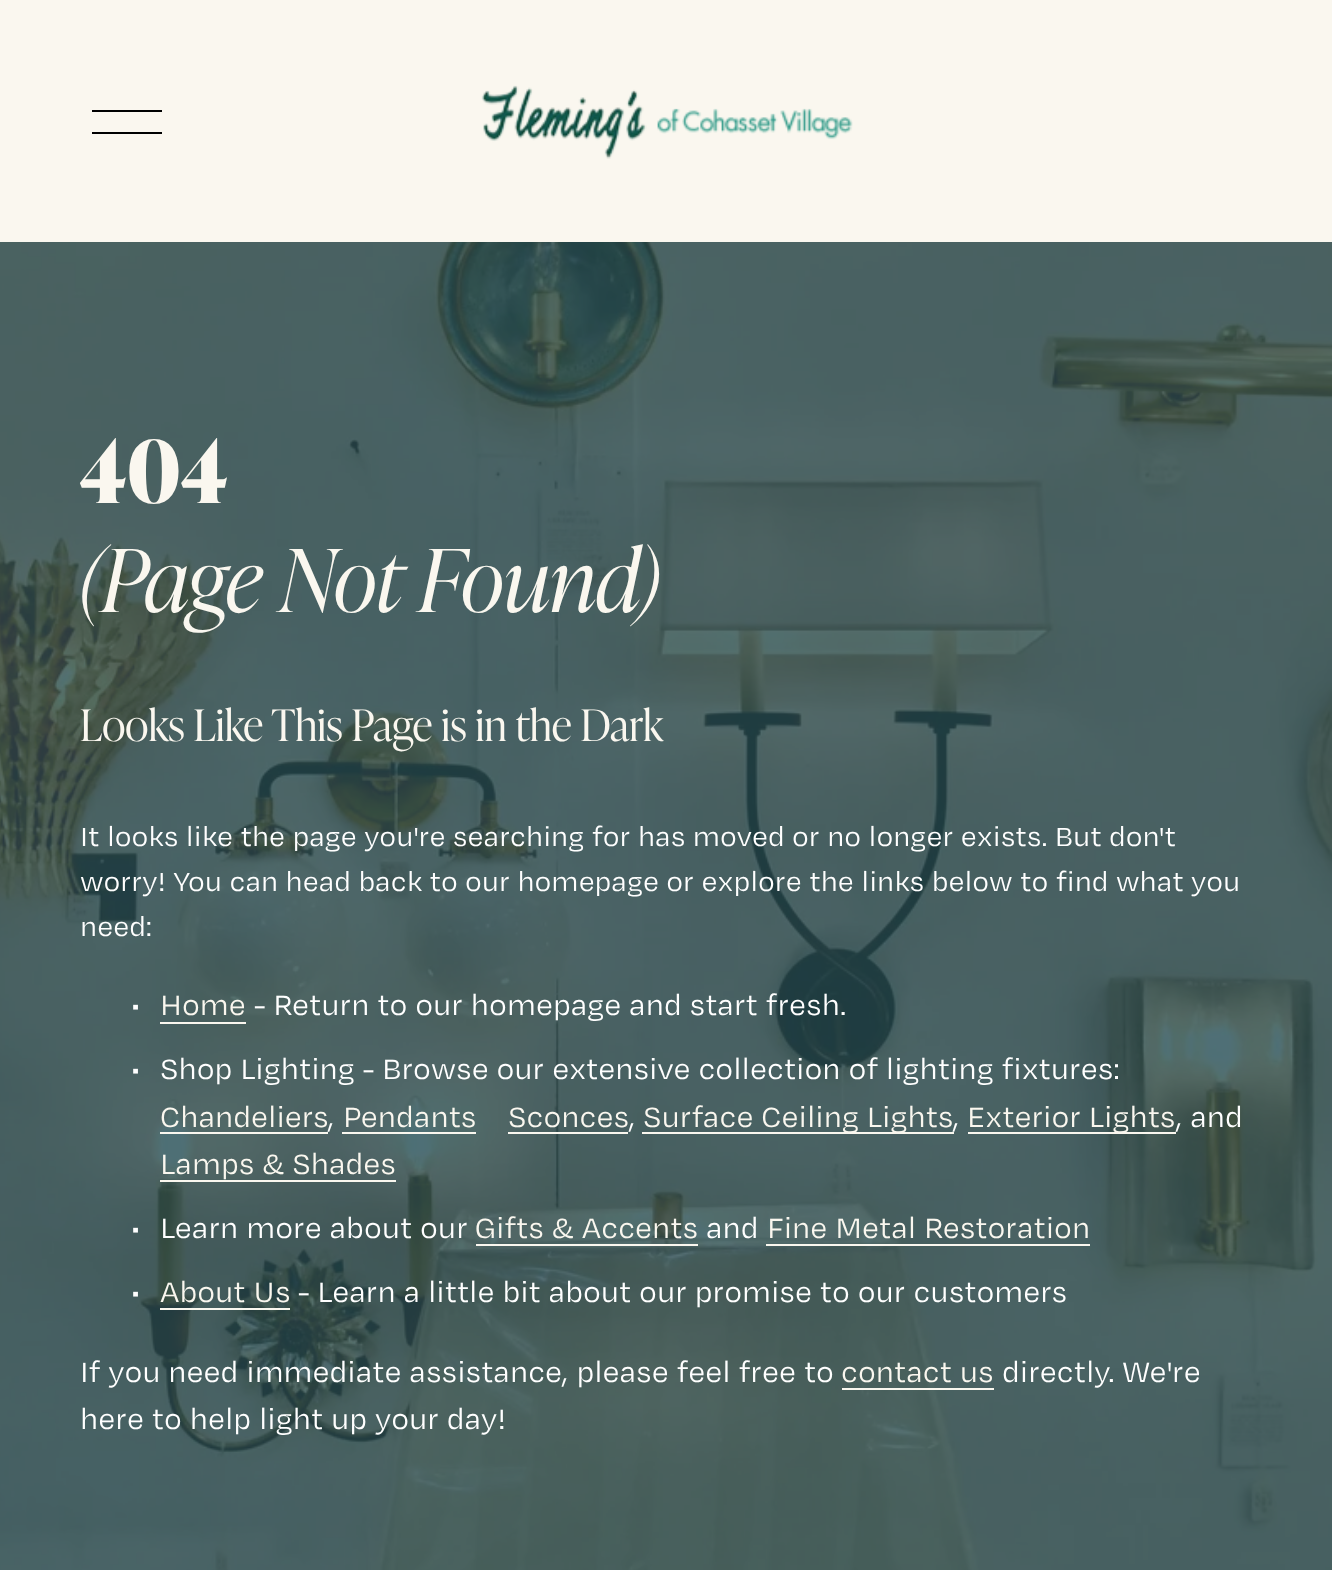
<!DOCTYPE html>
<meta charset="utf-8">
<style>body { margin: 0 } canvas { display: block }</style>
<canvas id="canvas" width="1332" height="1570"></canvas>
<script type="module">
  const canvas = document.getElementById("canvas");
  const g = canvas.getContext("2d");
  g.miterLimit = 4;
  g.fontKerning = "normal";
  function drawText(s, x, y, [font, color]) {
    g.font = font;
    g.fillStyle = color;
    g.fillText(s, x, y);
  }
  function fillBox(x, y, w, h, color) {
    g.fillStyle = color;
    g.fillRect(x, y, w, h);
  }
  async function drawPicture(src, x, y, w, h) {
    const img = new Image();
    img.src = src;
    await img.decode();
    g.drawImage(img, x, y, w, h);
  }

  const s1 = ["bold 86.5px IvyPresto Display", "#FAF7EF"];
  const s2 = ["italic 300 86.5px IvyPresto Display", "#FAF7EF"];
  const s3 = ["300 43.25px IvyPresto Display", "#FAF7EF"];
  const s4 = ["30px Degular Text", "#FFFFFF"];
  const s5 = ["31.9px Degular Text", "#FFFFFF"];
  const s6 = ["31.9px Degular Text", "#FAF7EF"];

  fillBox(0, 0, 1332, 1570, "#FFFFFF");
  fillBox(0, 0, 1332, 242, "#FAF7EF");
  fillBox(92, 110, 70, 2, "#000000");
  fillBox(92, 132, 70, 2, "#000000");
  await drawPicture("pic1.png", 481, 85, 372, 74);
  await drawPicture("pic2.png", 0, 242, 1332, 1328);
  drawText("404", 80, 503, s1);
  drawText("(Page Not Found)", 80, 612, s2);
  drawText("Looks Like This Page is in the Dark", 80, 741, s3);
  drawText("It looks like the page you're searching for has moved or no longer exists. But don't", 80, 846, s4);
  drawText("worry! You can head back to our homepage or explore the links below to find what you", 80, 891, s4);
  drawText("need:", 80, 936, s4);
  drawText("•", 131, 1015, s5);
  drawText("Home", 160, 1015, s6);
  fillBox(160, 1022, 86, 2, "#FAF7EF");
  drawText("- Return to our homepage and start fresh.", 254, 1015, s5);
  drawText("•", 131, 1079, s5);
  drawText("Shop Lighting - Browse our extensive collection of lighting fixtures:", 160, 1079, s5);
  drawText("Chandeliers", 160, 1127, s6);
  fillBox(160, 1132, 168, 2, "#FAF7EF");
  drawText(",", 328, 1127, s5);
  drawText("Pendants", 343, 1127, s6);
  fillBox(342, 1132, 134, 2, "#FAF7EF");
  drawText("Sconces", 508, 1127, s6);
  fillBox(508, 1132, 120, 2, "#FAF7EF");
  drawText(",", 629, 1127, s5);
  fillBox(642, 1132, 312, 2, "#FAF7EF");
  drawText("Surface Ceiling Lights", 643, 1127, s6);
  drawText(",", 953, 1127, s5);
  fillBox(968, 1132, 208, 2, "#FAF7EF");
  drawText("Exterior Lights", 967, 1127, s6);
  drawText(", and", 1176, 1127, s5);
  drawText("Lamps & Shades", 160, 1174, s6);
  fillBox(160, 1180, 236, 2, "#FAF7EF");
  drawText("•", 131, 1238, s5);
  drawText("Learn more about our", 160, 1238, s5);
  drawText("Gifts & Accents", 475, 1238, s6);
  fillBox(476, 1244, 222, 2, "#FAF7EF");
  drawText("and", 706, 1238, s5);
  drawText("Fine Metal Restoration", 767, 1238, s6);
  fillBox(766, 1244, 324, 2, "#FAF7EF");
  drawText("•", 131, 1302, s5);
  drawText("About Us", 160, 1302, s6);
  fillBox(160, 1308, 130, 2, "#FAF7EF");
  drawText("- Learn a little bit about our promise to our customers", 298, 1302, s5);
  drawText("If you need immediate assistance, please feel free to", 80, 1382, s5);
  drawText("contact us", 841, 1382, s6);
  fillBox(842, 1388, 152, 2, "#FAF7EF");
  drawText("directly. We're", 1002, 1382, s5);
  drawText("here to help light up your day!", 80, 1429, s5);
</script>
